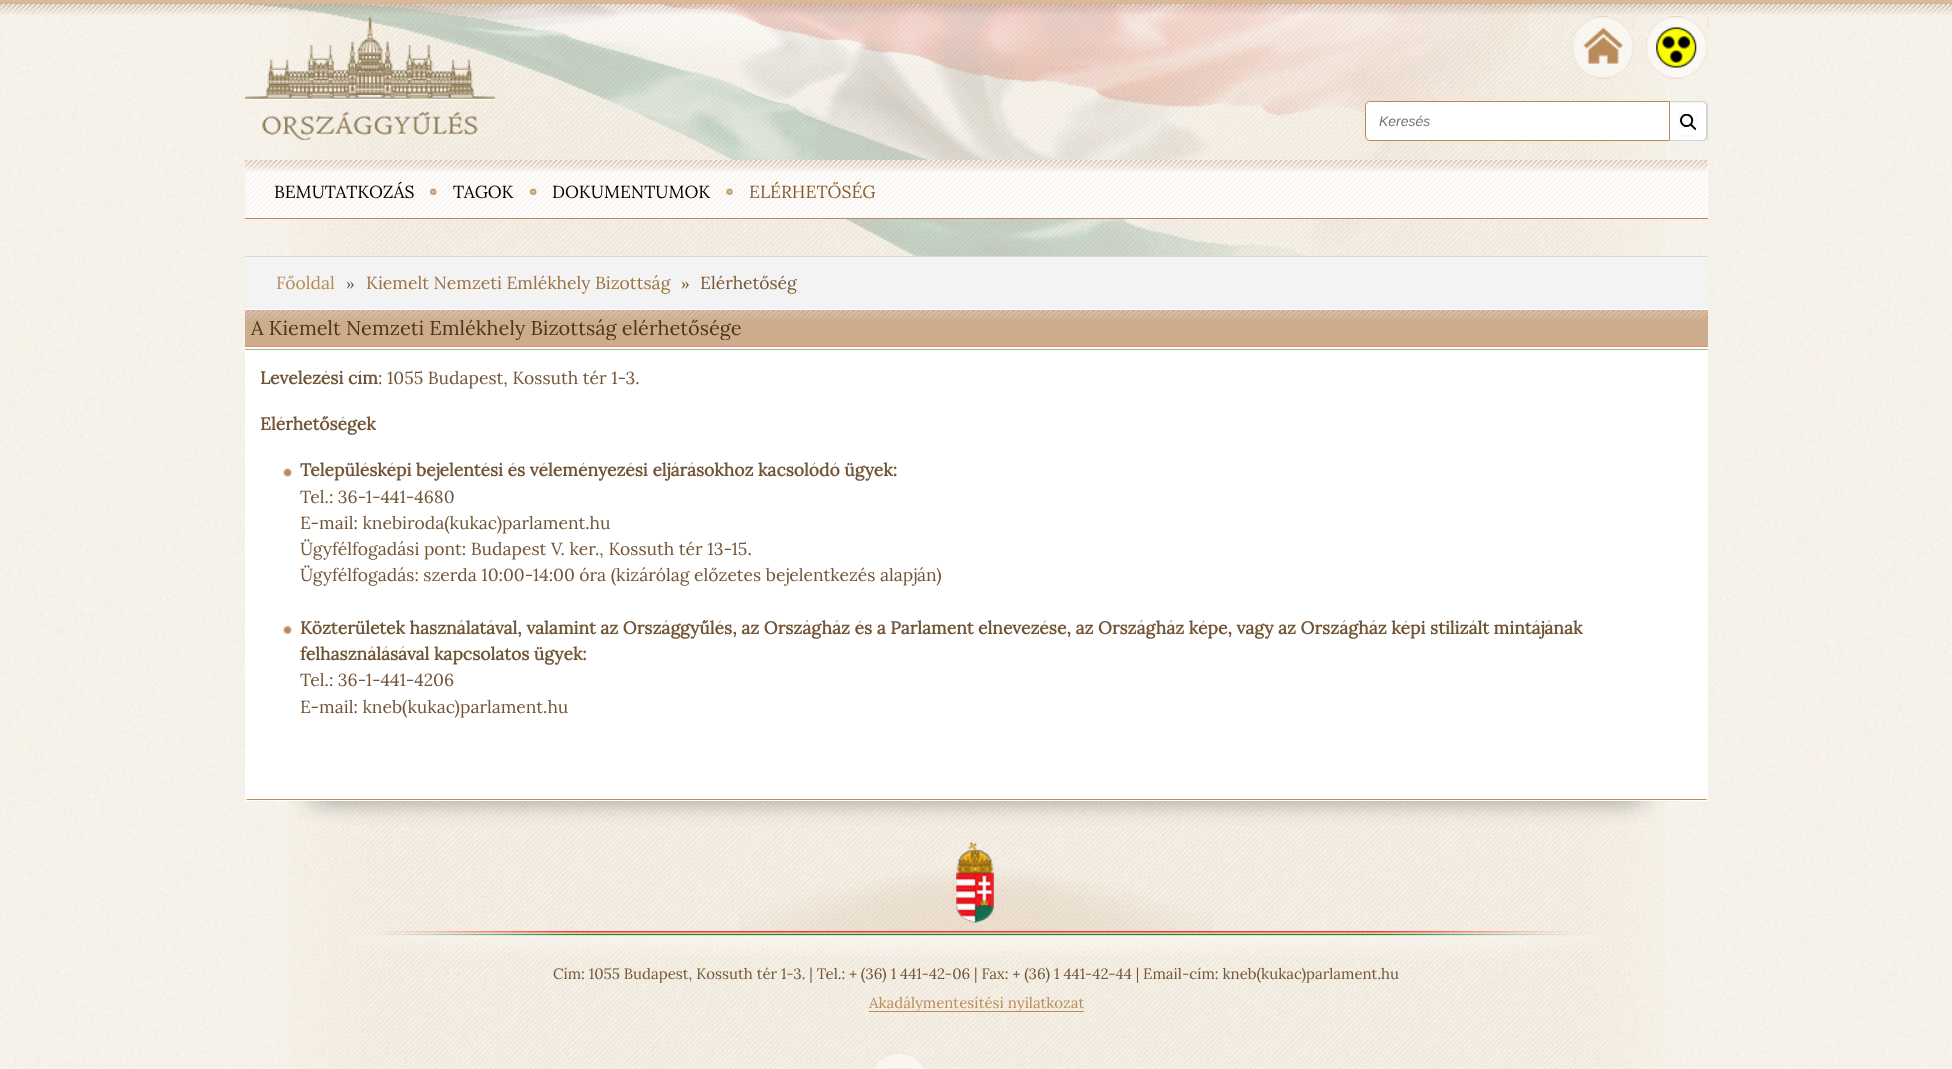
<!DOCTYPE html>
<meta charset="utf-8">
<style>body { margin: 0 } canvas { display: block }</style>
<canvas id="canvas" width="1952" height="1069"></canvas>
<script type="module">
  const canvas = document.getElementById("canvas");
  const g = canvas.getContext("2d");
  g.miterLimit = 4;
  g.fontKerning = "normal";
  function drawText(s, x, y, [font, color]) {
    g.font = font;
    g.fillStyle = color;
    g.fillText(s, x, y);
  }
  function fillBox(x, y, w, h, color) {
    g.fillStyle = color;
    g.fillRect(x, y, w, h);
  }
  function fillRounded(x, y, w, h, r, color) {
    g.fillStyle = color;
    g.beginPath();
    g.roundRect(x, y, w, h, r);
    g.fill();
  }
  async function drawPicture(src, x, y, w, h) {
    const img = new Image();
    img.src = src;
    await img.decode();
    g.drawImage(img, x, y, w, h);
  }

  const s1 = ["italic 14px Liberation Sans", "#6C757D"];
  const s2 = ["17.5px Lora", "#000000"];
  const s3 = ["17.5px Lora", "#8A5C2D"];
  const s4 = ["17.5px Lora", "#BA8B5A"];
  const s5 = ["17.5px Liberation Serif", "#725537"];
  const s6 = ["17.5px Lora", "#9E7242"];
  const s7 = ["17.5px Lora", "#7A5833"];
  const s8 = ["20px Lora", "#4D361F"];
  const s9 = ["bold 17.5px Lora", "#725537"];
  const s10 = ["17.5px Lora", "#725537"];
  const s11 = ["15px Lora", "#725537"];
  const s12 = ["15px Lora", "#BA8B5A"];

  fillBox(0, 0, 1952, 1069, "#FFFFFF");
  await drawPicture("pic1.png", 0, 4, 1952, 1065);
  await drawPicture("pic2.png", 469, 4, 1018, 62);
  await drawPicture("pic3.png", 289, 4, 1376, 1065);
  await drawPicture("pic4.png", 248, 4, 1281, 252);
  fillBox(0, 0, 1952, 4, "#DAB998");
  await drawPicture("pic5.png", 0, 3, 1952, 12);
  await drawPicture("pic6.png", 245, 17, 250, 125);
  await drawPicture("pic7.png", 1571, 16, 63, 63);
  await drawPicture("pic8.png", 1583, 27, 40, 37);
  await drawPicture("pic9.png", 1645, 16, 63, 63);
  await drawPicture("pic10.png", 1656, 27, 41, 41);
  g.fillStyle = "#FFFFFF";
  g.beginPath();
  g.roundRect(1365.5, 101.5, 304, 39, [4.5, 0, 0, 4.5]);
  g.fill();
  g.strokeStyle = "#BA8B5A";
  g.stroke();
  drawText("Keresés", 1379, 126, s1);
  g.fillStyle = "#FFFFFF";
  g.beginPath();
  g.roundRect(1670, 103, 36, 37, [0, 4, 4, 0]);
  g.fill();
  g.fillStyle = "#CED4DA";
  g.beginPath();
  g.moveTo(1670, 101);
  g.lineTo(1702, 101);
  g.bezierCurveTo(1705, 101, 1708, 103, 1708, 106);
  g.lineTo(1708, 136);
  g.bezierCurveTo(1708, 139, 1705, 141, 1702, 141);
  g.lineTo(1670, 141);
  g.closePath();
  g.moveTo(1670, 102);
  g.lineTo(1702, 102);
  g.bezierCurveTo(1705, 102, 1706, 104, 1706, 106);
  g.lineTo(1706, 136);
  g.bezierCurveTo(1706, 138, 1705, 140, 1702, 140);
  g.lineTo(1670, 140);
  g.closePath();
  g.fill("evenodd");
  g.fillStyle = "rgba(0, 0, 0, 0.05)";
  g.filter = "blur(1px)";
  g.beginPath();
  g.roundRect(1680, 109, 16, 27, 4);
  g.fill();
  g.filter = "none";
  fillRounded(1680, 108, 16, 27, 4, "#FFFFFF");
  await drawPicture("pic11.png", 1680, 114, 16, 16);
  fillBox(245, 160, 1463, 58, "#FFFFFF");
  await drawPicture("pic12.png", 245, 160, 1463, 58);
  fillBox(245, 218, 1463, 1, "#BA8B5A");
  await drawPicture("pic13.png", 245, 160, 1463, 12);
  drawText("BEMUTATKOZÁS", 274, 198, s2);
  await drawPicture("pic14.png", 430, 188, 7, 7);
  drawText("TAGOK", 453, 198, s2);
  await drawPicture("pic15.png", 530, 188, 7, 7);
  drawText("DOKUMENTUMOK", 552, 198, s2);
  await drawPicture("pic16.png", 726, 188, 7, 7);
  drawText("ELÉRHETŐSÉG", 749, 198, s3);
  fillBox(245, 257, 1463, 52, "#F3F3F3");
  fillBox(245, 256, 1463, 1, "#D8D8D8");
  fillBox(245, 309, 1463, 1, "#FFFFFF");
  drawText("Főoldal", 276, 289, s4);
  drawText("»", 346, 289, s5);
  drawText("Kiemelt Nemzeti Emlékhely Bizottság", 366, 289, s6);
  drawText("»", 681, 289, s5);
  drawText("Elérhetőség", 700, 289, s7);
  g.fillStyle = "rgba(0, 0, 0, 0.2)";
  g.filter = "blur(12.5px)";
  g.beginPath();
  g.roundRect(308, 555, 1337, 245, 13);
  g.fill();
  g.filter = "none";
  g.filter = "blur(12.5px)";
  g.beginPath();
  g.roundRect(308, 555, 1337, 245, 13);
  g.fill();
  g.filter = "none";
  fillBox(245, 350, 1463, 451, "#FFFFFF");
  fillBox(245, 310, 1463, 36, "#CDAC8B");
  await drawPicture("pic17.png", 245, 310, 1463, 12);
  g.save();
  g.beginPath();
  g.rect(251, 316, 490, 24);
  g.clip();
  drawText("A Kiemelt Nemzeti Emlékhely Bizottság elérhetősége", 251, 335, s8);
  g.restore();
  fillBox(245, 347, 1463, 2, "#FFFFFF");
  fillBox(245, 346, 1463, 1, "#FF7F7F");
  fillBox(245, 349, 1463, 1, "#88BE89");
  g.fillStyle = "#BA8B5A";
  g.beginPath();
  g.moveTo(1708, 800);
  g.lineTo(245, 800);
  g.lineTo(248, 799);
  g.lineTo(1705, 799);
  g.closePath();
  g.fill();
  drawText("Levelezési cím", 260, 384, s9);
  drawText(": 1055 Budapest, Kossuth tér 1-3.", 378, 384, s10);
  drawText("Elérhetőségek", 260, 430, s9);
  await drawPicture("pic18.png", 283, 468, 9, 9);
  drawText("Településképi bejelentési és véleményezési eljárásokhoz kacsolódó ügyek:", 300, 476, s9);
  drawText("Tel.: 36-1-441-4680", 300, 503, s10);
  drawText("E-mail: knebiroda(kukac)parlament.hu", 300, 529, s10);
  drawText("Ügyfélfogadási pont: Budapest V. ker., Kossuth tér 13-15.", 300, 555, s10);
  drawText("Ügyfélfogadás: szerda 10:00-14:00 óra (kizárólag előzetes bejelentkezés alapján)", 300, 581, s10);
  await drawPicture("pic19.png", 283, 626, 9, 8);
  drawText("Közterületek használatával, valamint az Országgyűlés, az Országház és a Parlament elnevezése, az Országház képe, vagy az Országház képi stilizált mintájának", 300, 634, s9);
  drawText("felhasználásával kapcsolatos ügyek:", 300, 660, s9);
  drawText("Tel.: 36-1-441-4206", 300, 686, s10);
  drawText("E-mail: kneb(kukac)parlament.hu", 300, 713, s10);
  await drawPicture("pic20.png", 739, 842, 474, 90);
  await drawPicture("pic21.png", 346, 931, 1256, 26);
  drawText("Cím: 1055 Budapest, Kossuth tér 1-3. | Tel.: + (36) 1 441-42-06 | Fax: + (36) 1 441-42-44 | Email-cím: kneb(kukac)parlament.hu", 553, 979, s11);
  fillBox(869, 1011, 215, 1, "#BA8B5A");
  drawText("Akadálymentesítési nyilatkozat", 869, 1008, s12);
  await drawPicture("pic22.png", 871, 1052, 54, 17);
  await drawPicture("pic23.png", 885, 1068, 28, 1);
</script>
